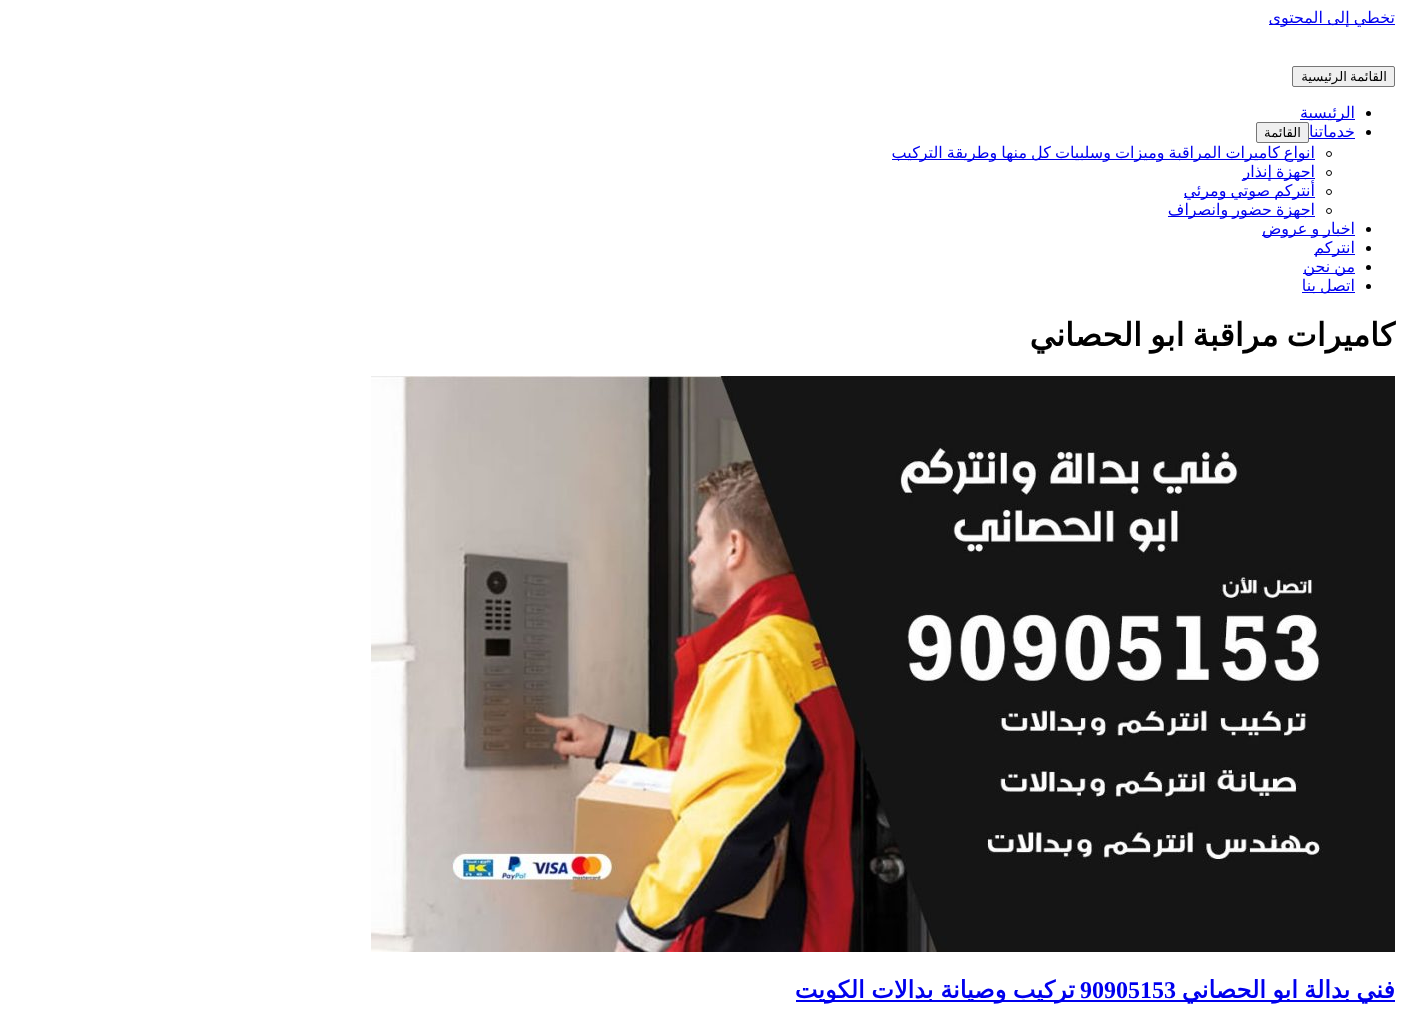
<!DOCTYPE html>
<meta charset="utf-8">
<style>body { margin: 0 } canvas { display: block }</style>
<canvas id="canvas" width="1403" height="1017"></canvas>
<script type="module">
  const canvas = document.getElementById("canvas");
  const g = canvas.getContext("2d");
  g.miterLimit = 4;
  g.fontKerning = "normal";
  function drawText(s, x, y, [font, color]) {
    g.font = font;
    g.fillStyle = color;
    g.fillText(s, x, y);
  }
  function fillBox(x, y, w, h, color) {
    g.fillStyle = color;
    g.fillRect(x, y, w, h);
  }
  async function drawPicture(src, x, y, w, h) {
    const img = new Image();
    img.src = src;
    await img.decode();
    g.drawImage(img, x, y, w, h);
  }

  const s1 = ["16px DejaVu Sans", "#0000EE"];
  const s2 = ["13.25px DejaVu Sans", "#000000"];
  const s3 = ["bold 32px DejaVu Sans", "#000000"];
  const s4 = ["bold 24px DejaVu Sans", "#0000EE"];
  const s5 = ["bold 24px Liberation Serif", "#0000EE"];

  fillBox(0, 0, 1403, 1017, "#FFFFFF");
  fillBox(1269, 24, 126, 1, "#0000EE");
  g.wordSpacing = "-1px";
  g.direction = "rtl";
  drawText("تخطي إلى المحتوى", 1395, 23, s1);
  g.fillStyle = "#EFEFEF";
  g.beginPath();
  g.roundRect(1292.5, 66.5, 102, 20, 1.5);
  g.fill();
  g.strokeStyle = "#767676";
  g.stroke();
  drawText("القائمة الرئيسية", 1387, 81, s2);
  g.beginPath();
  g.arc(1368.5, 113.5, 2.5, 0, Math.PI * 2);
  g.fill();
  fillBox(1300, 119, 55, 1, "#0000EE");
  g.wordSpacing = "0px";
  drawText("الرئيسية", 1355, 118, s1);
  g.fillStyle = "#000000";
  g.beginPath();
  g.arc(1368.5, 132.5, 2.5, 0, Math.PI * 2);
  g.fill();
  drawText("خدماتنا", 1355, 137, s1);
  fillBox(1309, 138, 46, 1, "#0000EE");
  g.fillStyle = "#EFEFEF";
  g.beginPath();
  g.roundRect(1256.5, 122.5, 52, 20, 1.5);
  g.fill();
  g.stroke();
  drawText("القائمة", 1301, 137, s2);
  g.beginPath();
  g.arc(1329, 154, 2.5, 0, Math.PI * 2);
  g.strokeStyle = "#000000";
  g.stroke();
  fillBox(892, 159, 423, 1, "#0000EE");
  g.wordSpacing = "-1px";
  drawText("انواع كاميرات المراقبة وميزات وسلبيات كل منها وطريقة التركيب", 1315, 158, s1);
  g.beginPath();
  g.arc(1329, 173, 2.5, 0, Math.PI * 2);
  g.stroke();
  fillBox(1243, 178, 72, 1, "#0000EE");
  drawText("اجهزة إنذار", 1315, 177, s1);
  g.beginPath();
  g.arc(1329, 192, 2.5, 0, Math.PI * 2);
  g.stroke();
  fillBox(1184, 197, 131, 1, "#0000EE");
  drawText("أنتركم صوتي ومرئي", 1315, 196, s1);
  g.beginPath();
  g.arc(1329, 211, 2.5, 0, Math.PI * 2);
  g.stroke();
  fillBox(1168, 216, 147, 1, "#0000EE");
  drawText("اجهزة حضور وانصراف", 1315, 215, s1);
  g.fillStyle = "#000000";
  g.beginPath();
  g.arc(1368.5, 229.5, 2.5, 0, Math.PI * 2);
  g.fill();
  fillBox(1262, 235, 93, 1, "#0000EE");
  drawText("اخبار و عروض", 1355, 234, s1);
  g.fillStyle = "#000000";
  g.beginPath();
  g.arc(1368.5, 248.5, 2.5, 0, Math.PI * 2);
  g.fill();
  fillBox(1314, 254, 41, 1, "#0000EE");
  g.wordSpacing = "0px";
  drawText("انتركم", 1355, 253, s1);
  g.fillStyle = "#000000";
  g.beginPath();
  g.arc(1368.5, 267.5, 2.5, 0, Math.PI * 2);
  g.fill();
  fillBox(1303, 273, 52, 1, "#0000EE");
  g.wordSpacing = "-1px";
  drawText("من نحن", 1355, 272, s1);
  g.fillStyle = "#000000";
  g.beginPath();
  g.arc(1368.5, 286.5, 2.5, 0, Math.PI * 2);
  g.fill();
  fillBox(1302, 292, 53, 1, "#0000EE");
  drawText("اتصل بنا", 1355, 291, s1);
  g.wordSpacing = "-2px";
  drawText("كاميرات مراقبة ابو الحصاني", 1395, 346, s3);
  await drawPicture("pic1.png", 371, 376, 1024, 576);
  fillBox(796, 1000, 599, 2, "#0000EE");
  g.wordSpacing = "-1.5px";
  drawText("فني بدالة ابو الحصاني", 1395, 998, s4);
  g.wordSpacing = "0px";
  g.direction = "ltr";
  drawText("90905153", 1080, 998, s5);
  g.wordSpacing = "-1px";
  g.direction = "rtl";
  drawText("تركيب وصيانة بدالات الكويت", 1075, 998, s4);
</script>
